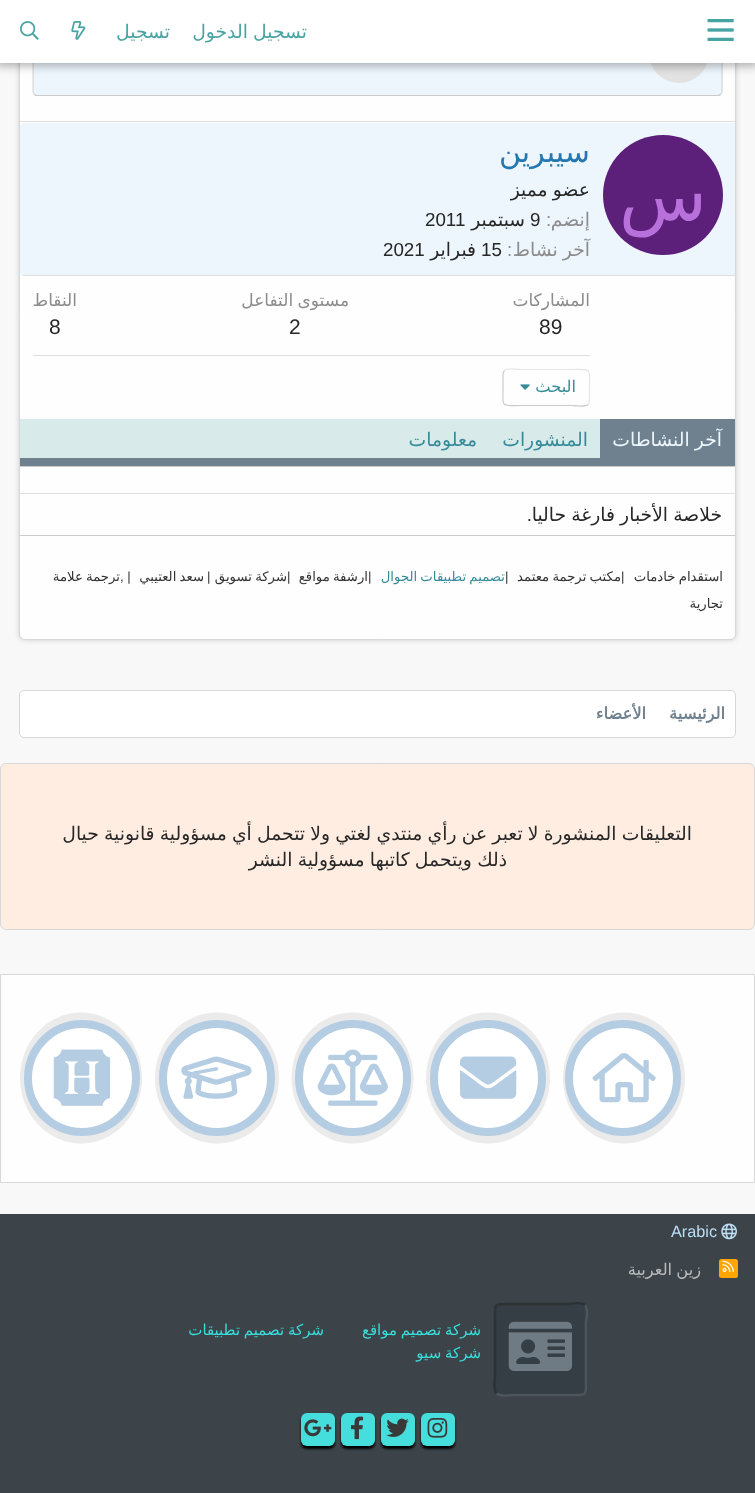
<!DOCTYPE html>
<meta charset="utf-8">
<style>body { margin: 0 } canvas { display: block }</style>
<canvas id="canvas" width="755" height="1493"></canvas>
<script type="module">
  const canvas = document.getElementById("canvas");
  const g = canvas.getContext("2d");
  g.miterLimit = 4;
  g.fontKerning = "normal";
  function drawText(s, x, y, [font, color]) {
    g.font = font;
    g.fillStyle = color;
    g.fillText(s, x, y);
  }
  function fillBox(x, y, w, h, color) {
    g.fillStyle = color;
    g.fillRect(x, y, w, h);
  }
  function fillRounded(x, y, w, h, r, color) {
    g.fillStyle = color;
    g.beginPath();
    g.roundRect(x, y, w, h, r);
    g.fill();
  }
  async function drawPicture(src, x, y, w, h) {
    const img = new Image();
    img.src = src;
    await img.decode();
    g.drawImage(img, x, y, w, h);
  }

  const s1 = ["18.75px DejaVu Sans", "#47A4A2"];
  const s2 = ["72px DejaVu Sans", "#B870DB"];
  const s3 = ["30px DejaVu Sans", "#2577B1"];
  const s4 = ["18.75px DejaVu Sans", "#272727"];
  const s5 = ["18.75px DejaVu Sans", "#8C8C8C"];
  const s6 = ["18.75px Liberation Sans", "#8C8C8C"];
  const s7 = ["18.75px Liberation Sans", "#272727"];
  const s8 = ["17px DejaVu Sans", "#8C8C8C"];
  const s9 = ["21px Liberation Sans", "#272727"];
  const s10 = ["16.25px DejaVu Sans", "#378B99"];
  const s11 = ["18.75px DejaVu Sans", "#EDF6FD"];
  const s12 = ["18.75px DejaVu Sans", "#378B99"];
  const s13 = ["13.25px DejaVu Sans", "#333333"];
  const s14 = ["13.25px Liberation Sans", "#333333"];
  const s15 = ["13.25px DejaVu Sans", "#378B99"];
  const s16 = ["bold 16.25px DejaVu Sans", "#6F818F"];
  const s17 = ["16.25px Liberation Sans", "#BCDEF5"];
  const s18 = ["16.25px DejaVu Sans", "#BABBBB"];
  const s19 = ["15px DejaVu Sans", "#39DDDB"];

  fillBox(0, 0, 755, 1493, "#F8F8F8");
  g.fillStyle = "#CECBCB";
  g.filter = "blur(2.5px)";
  g.beginPath();
  g.roundRect(19, -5, 717, 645, 6);
  g.fill();
  g.filter = "none";
  g.fillStyle = "#FEFEFE";
  g.beginPath();
  g.roundRect(19.5, -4.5, 716, 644, 5.5);
  g.fill();
  g.strokeStyle = "#D8D8D8";
  g.stroke();
  fillRounded(33, 9, 690, 87, 5, "#EDF6FD");
  g.beginPath();
  g.moveTo(720.5, 10.5);
  g.lineTo(722, 13.5);
  g.lineTo(722, 91.5);
  g.lineTo(720.5, 94.5);
  g.lineWidth = 1.2;
  g.stroke();
  g.beginPath();
  g.moveTo(720.5, 94.5);
  g.bezierCurveTo(720, 95, 718.5, 95.5, 717.5, 95.5);
  g.lineTo(37.5, 95.5);
  g.bezierCurveTo(36.5, 95.5, 35, 95, 34.5, 94.5);
  g.strokeStyle = "#CBCBCB";
  g.stroke();
  g.beginPath();
  g.moveTo(34.5, 94.5);
  g.lineTo(33, 91.5);
  g.lineTo(33, 13.5);
  g.lineTo(34.5, 10.5);
  g.strokeStyle = "#D8D8D8";
  g.stroke();
  g.fillStyle = "#E2E2E2";
  g.beginPath();
  g.arc(679, 53, 30, 0, Math.PI * 2);
  g.fill();
  g.fillStyle = "rgba(0, 0, 0, 0.3)";
  g.filter = "blur(5px)";
  g.beginPath();
  g.rect(-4, -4, 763, 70);
  g.fill();
  g.filter = "none";
  fillBox(0, 0, 755, 63, "#FFFFFF");
  await drawPicture("pic1.png", 707, 19, 27, 22);
  g.wordSpacing = "-0.75px";
  g.direction = "rtl";
  drawText("تسجيل الدخول", 307, 38, s1);
  g.wordSpacing = "0px";
  drawText("تسجيل", 170, 38, s1);
  await drawPicture("pic2.png", 71, 21, 15, 19);
  await drawPicture("pic3.png", 20, 21, 19, 19);
  fillBox(20, 121, 715, 1, "#DFDFDF");
  fillBox(20, 466, 715, 1, "#CBCBCB");
  g.fillStyle = "#EDF6FD";
  g.beginPath();
  g.roundRect(20, 123, 715, 153, [4, 0, 0, 4]);
  g.fill();
  fillBox(23, 275, 712, 1, "#DFDFDF");
  g.fillStyle = "#5C1F7A";
  g.beginPath();
  g.arc(663, 195, 60, 0, Math.PI * 2);
  g.fill();
  drawText("س", 707, 220, s2);
  drawText("سيبرين", 590, 162, s3);
  g.wordSpacing = "-0.75px";
  drawText("عضو مميز", 590, 196, s4);
  g.wordSpacing = "0px";
  drawText("إنضم", 590, 226, s5);
  g.direction = "ltr";
  drawText(":", 546, 226, s6);
  drawText("9", 530, 226, s7);
  g.direction = "rtl";
  drawText("سبتمبر", 525, 226, s4);
  g.direction = "ltr";
  drawText("2011", 425, 226, s7);
  g.wordSpacing = "-0.75px";
  g.direction = "rtl";
  drawText("آخر نشاط", 590, 256, s5);
  g.wordSpacing = "0px";
  g.direction = "ltr";
  drawText(":", 507, 256, s6);
  drawText("15", 481, 256, s7);
  g.direction = "rtl";
  drawText("فبراير", 476, 256, s4);
  g.direction = "ltr";
  drawText("2021", 383, 256, s7);
  g.direction = "rtl";
  drawText("المشاركات", 590, 306, s8);
  g.direction = "ltr";
  drawText("89", 539, 334, s9);
  g.wordSpacing = "-1px";
  g.direction = "rtl";
  drawText("مستوى التفاعل", 349, 306, s8);
  g.wordSpacing = "0px";
  g.direction = "ltr";
  drawText("2", 289, 334, s9);
  g.direction = "rtl";
  drawText("النقاط", 77, 306, s8);
  g.direction = "ltr";
  drawText("8", 49, 334, s9);
  fillBox(33, 355, 557, 1, "#DFDFDF");
  g.beginPath();
  g.moveTo(504.5, 370.5);
  g.bezierCurveTo(507.5, 367.5, 519, 369.5, 520.5, 369.5);
  g.lineTo(572, 369.5);
  g.bezierCurveTo(592.5, 369.5, 589.5, 367.5, 589.5, 387.5);
  g.lineTo(589.5, 396.5);
  g.bezierCurveTo(589.5, 399, 590, 402.5, 588, 404.5);
  g.strokeStyle = "#E5E5E5";
  g.stroke();
  g.beginPath();
  g.moveTo(588, 404.5);
  g.bezierCurveTo(585, 407.5, 573.5, 405.5, 572, 405.5);
  g.lineTo(520.5, 405.5);
  g.bezierCurveTo(500, 405.5, 503, 407.5, 503, 387.5);
  g.lineTo(503, 378.5);
  g.bezierCurveTo(503, 376, 502.5, 372.5, 504.5, 370.5);
  g.strokeStyle = "#CBCBCB";
  g.stroke();
  g.direction = "rtl";
  drawText("البحث", 576, 392, s10);
  await drawPicture("pic4.png", 520, 384, 10, 6);
  fillBox(20, 419, 580, 39, "#D8EAEA");
  fillBox(20, 458, 715, 8, "#6F818F");
  fillBox(600, 419, 135, 39, "#6F818F");
  g.wordSpacing = "-0.75px";
  drawText("آخر النشاطات", 722, 446, s11);
  g.wordSpacing = "0px";
  drawText("المنشورات", 588, 446, s12);
  drawText("معلومات", 477, 446, s12);
  fillBox(20, 493, 715, 1, "#DFDFDF");
  fillBox(20, 535, 715, 1, "#CBCBCB");
  g.wordSpacing = "-0.75px";
  drawText("خلاصة الأخبار فارغة حاليا", 722, 521, s4);
  g.wordSpacing = "0px";
  drawText(".", 532, 521, s7);
  g.wordSpacing = "-1px";
  drawText("استقدام خادمات", 723, 581, s13);
  g.wordSpacing = "0px";
  g.direction = "ltr";
  drawText("|", 621, 581, s14);
  g.wordSpacing = "-1px";
  g.direction = "rtl";
  drawText("مكتب ترجمة معتمد", 621, 581, s13);
  g.wordSpacing = "0px";
  g.direction = "ltr";
  drawText("|", 505, 581, s14);
  g.wordSpacing = "-1px";
  g.direction = "rtl";
  drawText("تصميم تطبيقات الجوال", 505, 581, s15);
  g.wordSpacing = "0px";
  g.direction = "ltr";
  drawText("|", 368, 581, s14);
  g.wordSpacing = "-1px";
  g.direction = "rtl";
  drawText("ارشفة مواقع", 368, 581, s13);
  g.wordSpacing = "0px";
  g.direction = "ltr";
  drawText("|", 287, 581, s14);
  g.wordSpacing = "-1px";
  g.direction = "rtl";
  drawText("شركة تسويق", 287, 581, s13);
  g.wordSpacing = "0px";
  g.direction = "ltr";
  drawText("|", 207, 581, s14);
  g.wordSpacing = "-1px";
  g.direction = "rtl";
  drawText("سعد العتيبي", 204, 581, s13);
  g.wordSpacing = "0px";
  g.direction = "ltr";
  drawText(", |", 120, 581, s14);
  g.wordSpacing = "-1px";
  g.direction = "rtl";
  drawText("ترجمة علامة", 120, 581, s13);
  g.wordSpacing = "0px";
  drawText("تجارية", 723, 608, s13);
  g.fillStyle = "#FFFFFF";
  g.beginPath();
  g.roundRect(19.5, 690.5, 716, 47, 4.5);
  g.fill();
  g.strokeStyle = "#D8D8D8";
  g.lineWidth = 1;
  g.stroke();
  drawText("الرئيسية", 725, 719, s16);
  drawText("الأعضاء", 646, 719, s16);
  g.fillStyle = "#FFEDE2";
  g.beginPath();
  g.roundRect(0.5, 763.5, 754, 166, 5.5);
  g.fill();
  g.stroke();
  g.wordSpacing = "-0.75px";
  drawText("التعليقات المنشورة ﻻ تعبر عن رأي منتدي لغتي وﻻ تتحمل أي مسؤولية قانونية حيال", 692, 840, s4);
  drawText("ذلك ويتحمل كاتبها مسؤولية النشر", 507, 866, s4);
  g.fillStyle = "#FEFEFE";
  g.beginPath();
  g.rect(0.5, 974.5, 754, 208);
  g.fill();
  g.stroke();
  g.fillStyle = "#EBEBEB";
  g.beginPath();
  g.ellipse(624, 1078, 61, 65.5, 0, 0, Math.PI * 2);
  g.fill();
  g.fillStyle = "#FFFFFF";
  g.beginPath();
  g.arc(623, 1078, 54, 0, Math.PI * 2);
  g.fill();
  g.strokeStyle = "#B5CDE3";
  g.lineWidth = 8;
  g.stroke();
  await drawPicture("pic5.png", 592, 1053, 64, 50);
  g.fillStyle = "#EBEBEB";
  g.beginPath();
  g.ellipse(488, 1078, 62, 65.5, 0, 0, Math.PI * 2);
  g.fill();
  g.fillStyle = "#FFFFFF";
  g.beginPath();
  g.arc(488, 1078, 54, 0, Math.PI * 2);
  g.fill();
  g.stroke();
  await drawPicture("pic6.png", 460, 1056, 57, 43);
  g.fillStyle = "#EBEBEB";
  g.beginPath();
  g.ellipse(352.5, 1078, 61, 65.5, 0, 0, Math.PI * 2);
  g.fill();
  g.fillStyle = "#FFFFFF";
  g.beginPath();
  g.arc(353, 1078, 54, 0, Math.PI * 2);
  g.fill();
  g.stroke();
  await drawPicture("pic7.png", 317, 1049, 71, 57);
  g.fillStyle = "#EBEBEB";
  g.beginPath();
  g.ellipse(217, 1078, 62, 65.5, 0, 0, Math.PI * 2);
  g.fill();
  g.fillStyle = "#FFFFFF";
  g.beginPath();
  g.arc(217, 1078, 54, 0, Math.PI * 2);
  g.fill();
  g.stroke();
  await drawPicture("pic8.png", 181, 1056, 71, 43);
  g.fillStyle = "#EBEBEB";
  g.beginPath();
  g.ellipse(81, 1078, 61, 65.5, 0, 0, Math.PI * 2);
  g.fill();
  g.fillStyle = "#FFFFFF";
  g.beginPath();
  g.arc(82, 1078, 54, 0, Math.PI * 2);
  g.fill();
  g.stroke();
  await drawPicture("pic9.png", 53, 1049, 57, 57);
  fillBox(0, 1214, 755, 279, "#3C444A");
  await drawPicture("pic10.png", 721, 1223, 16, 17);
  g.wordSpacing = "0px";
  g.direction = "ltr";
  drawText("Arabic", 671, 1237, s17);
  fillRounded(719, 1259, 19, 19, 2.5, "#FFA500");
  await drawPicture("pic11.png", 722, 1260, 12, 13);
  g.wordSpacing = "-1px";
  g.direction = "rtl";
  drawText("زين العربية", 701, 1275, s18);
  fillRounded(494, 1303, 94, 93, 6, "#353E44");
  g.beginPath();
  g.moveTo(585, 1305);
  g.bezierCurveTo(588.5, 1309, 586, 1322, 586, 1322.5);
  g.lineTo(586, 1376.5);
  g.bezierCurveTo(586, 1397.5, 588.5, 1395, 567.5, 1395);
  g.lineTo(513.5, 1395);
  g.bezierCurveTo(513, 1395, 500, 1397, 496.5, 1393.5);
  g.strokeStyle = "#4D565C";
  g.lineWidth = 2.5;
  g.stroke();
  g.beginPath();
  g.moveTo(496.5, 1393.5);
  g.bezierCurveTo(493, 1390, 495, 1377, 495, 1376.5);
  g.lineTo(495, 1322.5);
  g.bezierCurveTo(495, 1301.5, 492.5, 1304, 513.5, 1304);
  g.lineTo(567.5, 1304);
  g.bezierCurveTo(568, 1304, 581, 1301.5, 585, 1305);
  g.strokeStyle = "#2D3235";
  g.stroke();
  await drawPicture("pic12.png", 508, 1321, 64, 50);
  drawText("شركة تصميم مواقع", 481, 1335, s19);
  drawText("شركة تصميم تطبيقات", 324, 1335, s19);
  drawText("شركة سيو", 481, 1358, s19);
  g.fillStyle = "#000000";
  g.filter = "blur(1px)";
  g.beginPath();
  g.roundRect(421, 1415, 34, 34, 6);
  g.fill();
  g.filter = "none";
  fillRounded(421, 1413, 34, 33, 6, "#46DEDC");
  await drawPicture("pic13.png", 427, 1418, 21, 20);
  g.fillStyle = "#000000";
  g.filter = "blur(1px)";
  g.beginPath();
  g.roundRect(381, 1415, 34, 34, 6);
  g.fill();
  g.filter = "none";
  fillRounded(381, 1413, 34, 33, 6, "#46DEDC");
  await drawPicture("pic14.png", 386, 1418, 23, 19);
  g.fillStyle = "#000000";
  g.filter = "blur(1px)";
  g.beginPath();
  g.roundRect(341, 1415, 34, 34, 6);
  g.fill();
  g.filter = "none";
  fillRounded(341, 1413, 34, 33, 6, "#46DEDC");
  await drawPicture("pic15.png", 351, 1416, 13, 24);
  g.fillStyle = "#000000";
  g.filter = "blur(1px)";
  g.beginPath();
  g.roundRect(301, 1415, 34, 34, 6);
  g.fill();
  g.filter = "none";
  fillRounded(301, 1413, 34, 33, 6, "#46DEDC");
  await drawPicture("pic16.png", 304, 1419, 28, 18);
</script>
